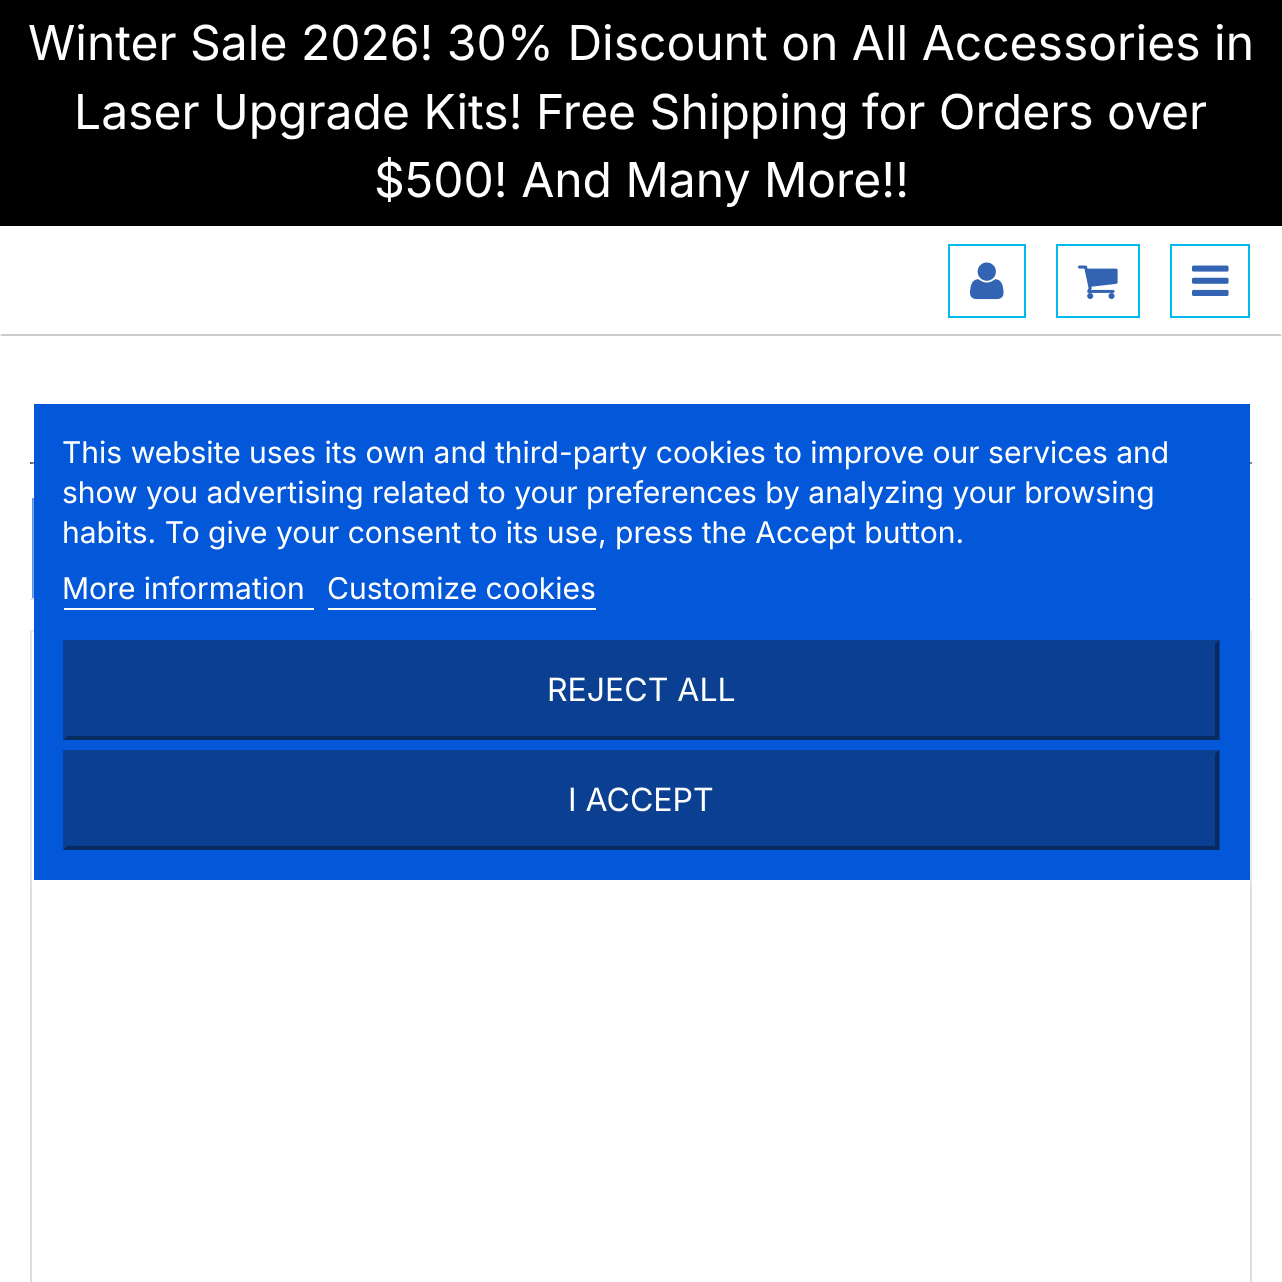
<!DOCTYPE html>
<meta charset="utf-8">
<style>body { margin: 0 } canvas { display: block }</style>
<canvas id="canvas" width="1282" height="1282"></canvas>
<script type="module">
  const canvas = document.getElementById("canvas");
  const g = canvas.getContext("2d");
  g.miterLimit = 4;
  g.fontKerning = "normal";
  function drawText(s, x, y, [font, color]) {
    g.font = font;
    g.fillStyle = color;
    g.fillText(s, x, y);
  }
  function fillBox(x, y, w, h, color) {
    g.fillStyle = color;
    g.fillRect(x, y, w, h);
  }
  async function drawPicture(src, x, y, w, h) {
    const img = new Image();
    img.src = src;
    await img.decode();
    g.drawImage(img, x, y, w, h);
  }

  const s1 = ["48px Inter", "#FFFFFF"];
  const s2 = ["30px Inter", "#FFFFFF"];
  const s3 = ["32px Inter", "#FFFFFF"];

  fillBox(0, 0, 1282, 1282, "#FFFFFF");
  fillBox(0, 0, 1282, 226, "#000000");
  drawText("Winter Sale 2026! 30% Discount on All Accessories in", 28, 60, s1);
  drawText("Laser Upgrade Kits! Free Shipping for Orders over", 74, 129, s1);
  drawText("$500! And Many More!!", 374, 197, s1);
  g.fillStyle = "#CCCCCC";
  g.beginPath();
  g.moveTo(1282, 336);
  g.lineTo(0, 336);
  g.lineTo(2, 334);
  g.lineTo(1280, 334);
  g.closePath();
  g.fill();
  g.strokeStyle = "#00BAED";
  g.lineWidth = 2;
  g.strokeRect(949, 245, 76, 72);
  await drawPicture("pic1.png", 970, 262, 34, 38);
  g.strokeRect(1057, 245, 82, 72);
  await drawPicture("pic2.png", 1078, 265, 40, 34);
  g.strokeRect(1171, 245, 78, 72);
  await drawPicture("pic3.png", 1192, 265, 37, 31);
  fillBox(30, 462, 4, 2, "#333333");
  fillBox(1250, 462, 2, 2, "#333333");
  g.fillStyle = "#CCCCCC";
  g.beginPath();
  g.moveTo(1252, 600);
  g.lineTo(30, 600);
  g.lineTo(32, 598);
  g.lineTo(1250, 598);
  g.closePath();
  g.fill();
  fillBox(32, 498, 2, 100, "#0358D9");
  g.strokeStyle = "#DDDDDD";
  g.strokeRect(31, 631, 1220, 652);
  g.fillStyle = "#FFFFFF";
  g.filter = "blur(5px)";
  g.beginPath();
  g.rect(34, 406, 1216, 476);
  g.fill();
  g.filter = "none";
  fillBox(34, 404, 1216, 476, "#0358D9");
  drawText("This website uses its own and third-party cookies to improve our services and", 62, 463, s2);
  drawText("show you advertising related to your preferences by analyzing your browsing", 62, 503, s2);
  drawText("habits. To give your consent to its use, press the Accept button.", 62, 543, s2);
  drawText("More information", 62, 599, s2);
  fillBox(64, 608, 250, 2, "#FFFFFF");
  drawText("Customize cookies", 327, 599, s2);
  fillBox(328, 608, 268, 2, "#FFFFFF");
  fillBox(64, 640, 1156, 100, "#0A3F91");
  g.beginPath();
  g.moveTo(63, 640);
  g.lineTo(1219, 640);
  g.lineTo(1215, 644);
  g.lineTo(67, 644);
  g.closePath();
  g.fill();
  g.fillStyle = "#072A61";
  g.beginPath();
  g.moveTo(1219, 640);
  g.lineTo(1219, 740);
  g.lineTo(1215, 736);
  g.lineTo(1215, 644);
  g.closePath();
  g.fill();
  g.beginPath();
  g.moveTo(1219, 740);
  g.lineTo(63, 740);
  g.lineTo(67, 736);
  g.lineTo(1215, 736);
  g.closePath();
  g.fill();
  g.fillStyle = "#0A3F91";
  g.beginPath();
  g.moveTo(63, 740);
  g.lineTo(63, 640);
  g.lineTo(67, 644);
  g.lineTo(67, 736);
  g.closePath();
  g.fill();
  drawText("REJECT ALL", 547, 701, s3);
  fillBox(64, 750, 1156, 100, "#0A3F91");
  g.beginPath();
  g.moveTo(63, 750);
  g.lineTo(1219, 750);
  g.lineTo(1215, 754);
  g.lineTo(67, 754);
  g.closePath();
  g.fill();
  g.fillStyle = "#072A61";
  g.beginPath();
  g.moveTo(1219, 750);
  g.lineTo(1219, 850);
  g.lineTo(1215, 846);
  g.lineTo(1215, 754);
  g.closePath();
  g.fill();
  g.beginPath();
  g.moveTo(1219, 850);
  g.lineTo(63, 850);
  g.lineTo(67, 846);
  g.lineTo(1215, 846);
  g.closePath();
  g.fill();
  g.fillStyle = "#0A3F91";
  g.beginPath();
  g.moveTo(63, 850);
  g.lineTo(63, 750);
  g.lineTo(67, 754);
  g.lineTo(67, 846);
  g.closePath();
  g.fill();
  drawText("I ACCEPT", 568, 811, s3);
</script>
